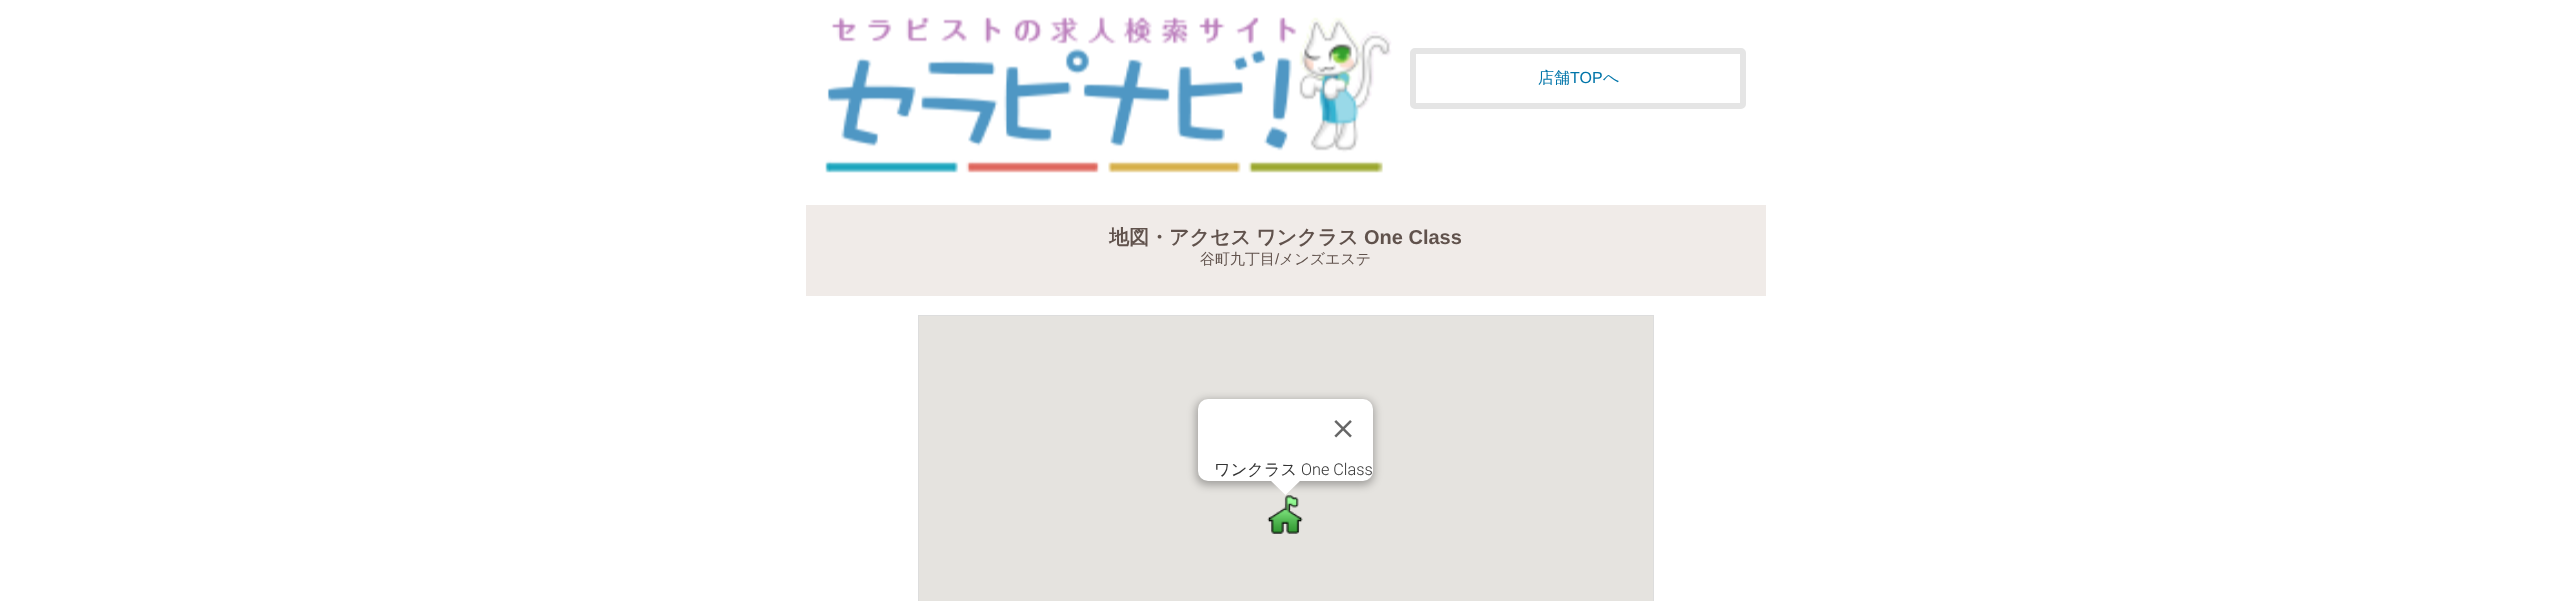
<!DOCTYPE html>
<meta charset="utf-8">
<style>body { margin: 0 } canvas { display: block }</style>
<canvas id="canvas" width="2571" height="601"></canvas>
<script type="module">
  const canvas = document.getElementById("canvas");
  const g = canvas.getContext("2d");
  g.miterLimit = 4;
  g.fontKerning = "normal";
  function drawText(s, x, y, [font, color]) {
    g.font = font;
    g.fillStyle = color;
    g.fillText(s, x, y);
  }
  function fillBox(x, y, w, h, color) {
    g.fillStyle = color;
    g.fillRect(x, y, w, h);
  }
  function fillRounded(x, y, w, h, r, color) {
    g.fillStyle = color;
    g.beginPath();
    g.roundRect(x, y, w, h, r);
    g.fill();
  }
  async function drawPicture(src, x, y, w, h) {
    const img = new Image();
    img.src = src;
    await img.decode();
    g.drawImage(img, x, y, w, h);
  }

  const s1 = ["500 16px WenQuanYi Zen Hei", "#0075A9"];
  const s2 = ["16px Liberation Sans", "#0075A9"];
  const s3 = ["bold 20px WenQuanYi Zen Hei", "#60524C"];
  const s4 = ["bold 20px Liberation Sans", "#60524C"];
  const s5 = ["500 15px WenQuanYi Zen Hei", "#60524C"];
  const s6 = ["15px Liberation Sans", "#60524C"];
  const s7 = ["500 16.25px WenQuanYi Zen Hei", "#333333"];
  const s8 = ["300 16.25px Roboto", "#333333"];

  fillBox(0, 0, 2571, 601, "#FFFFFF");
  await drawPicture("pic1.png", 825, 15, 567, 158);
  g.beginPath();
  g.roundRect(1413, 51, 330, 55, 2);
  g.strokeStyle = "#E5E5E5";
  g.lineWidth = 6;
  g.stroke();
  drawText("店舗", 1538, 83, s1);
  drawText("TOP", 1570, 83, s2);
  drawText("へ", 1603, 83, s1);
  fillBox(806, 205, 960, 91, "#F0EBE8");
  drawText("地図・アクセス", 1109, 244, s3);
  drawText("ワンクラス", 1256, 244, s3);
  drawText("One Class", 1364, 244, s4);
  drawText("谷町九丁目", 1200, 264, s5);
  drawText("/", 1275, 264, s6);
  drawText("メンズエステ", 1279, 264, s5);
  g.strokeStyle = "#DDDDDD";
  g.lineWidth = 1;
  g.strokeRect(918.5, 315.5, 735, 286);
  fillBox(919, 316, 734, 285, "#E5E3DF");
  await drawPicture("pic3.png", 1267, 495, 36, 39);
  g.fillStyle = "rgba(0, 0, 0, 0.3)";
  g.filter = "blur(4.5px)";
  g.beginPath();
  g.roundRect(1196, 400, 178, 85, 11);
  g.fill();
  g.filter = "none";
  fillRounded(1198, 399, 175, 82, 10, "#FFFFFF");
  await drawPicture("pic2.png", 1334, 420, 18, 18);
  drawText("ワンクラス", 1214, 475, s7);
  drawText("One Class", 1301, 475, s8);
  g.fillStyle = "#FFFFFF";
  g.beginPath();
  g.moveTo(1301, 480);
  g.lineTo(1270, 480);
  g.lineTo(1285.5, 495);
  g.closePath();
  g.fill();
</script>
